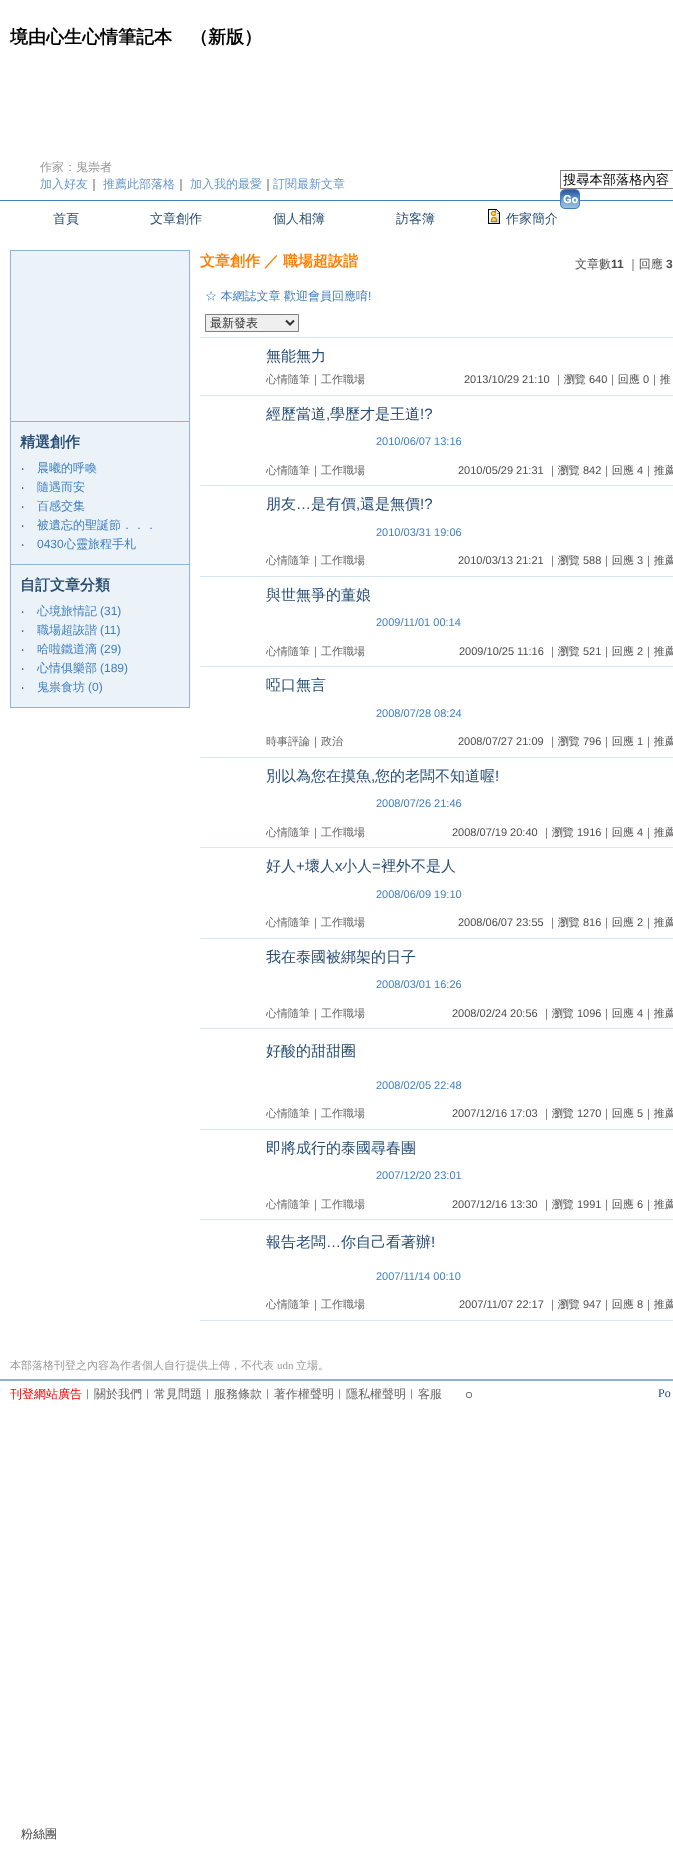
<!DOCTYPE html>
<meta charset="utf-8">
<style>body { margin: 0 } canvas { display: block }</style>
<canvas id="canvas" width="673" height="1849"></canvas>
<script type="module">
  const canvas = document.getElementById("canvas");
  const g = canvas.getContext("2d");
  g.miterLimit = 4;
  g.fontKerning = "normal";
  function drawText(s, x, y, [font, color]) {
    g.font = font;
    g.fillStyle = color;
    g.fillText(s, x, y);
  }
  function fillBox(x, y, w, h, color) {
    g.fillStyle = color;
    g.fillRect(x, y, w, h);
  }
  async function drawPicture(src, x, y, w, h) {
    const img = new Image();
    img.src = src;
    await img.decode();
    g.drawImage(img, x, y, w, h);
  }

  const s1 = ["bold 18px WenQuanYi Zen Hei", "#000000"];
  const s2 = ["500 12px WenQuanYi Zen Hei", "#999999"];
  const s3 = ["500 12px WenQuanYi Zen Hei", "#6698CC"];
  const s4 = ["500 12px WenQuanYi Zen Hei", "#333333"];
  const s5 = ["500 13.25px WenQuanYi Zen Hei", "#000000"];
  const s6 = ["500 13px WenQuanYi Zen Hei", "#274D74"];
  const s7 = ["bold 15px WenQuanYi Zen Hei", "#274D74"];
  const s8 = ["12px Noto Sans", "#333333"];
  const s9 = ["500 12px WenQuanYi Zen Hei", "#4180C0"];
  const s10 = ["12px Liberation Sans", "#4180C0"];
  const s11 = ["bold 15px WenQuanYi Zen Hei", "#FF7E00"];
  const s12 = ["500 12px WenQuanYi Zen Hei", "#4D4D4D"];
  const s13 = ["bold 12px Liberation Sans", "#4D4D4D"];
  const s14 = ["500 15px WenQuanYi Zen Hei", "#274D74"];
  const s15 = ["500 11px WenQuanYi Zen Hei", "#666666"];
  const s16 = ["500 11px WenQuanYi Zen Hei", "#4D4D4D"];
  const s17 = ["11px Liberation Sans", "#4D4D4D"];
  const s18 = ["15px Liberation Sans", "#274D74"];
  const s19 = ["11px Liberation Sans", "#4180C0"];
  const s20 = ["500 11px WenQuanYi Zen Hei", "#999999"];
  const s21 = ["11px Liberation Serif", "#999999"];
  const s22 = ["500 12px WenQuanYi Zen Hei", "#FF0000"];
  const s23 = ["500 12px WenQuanYi Zen Hei", "#666666"];
  const s24 = ["12px Liberation Serif", "#274D74"];
  const s25 = ["500 12px WenQuanYi Zen Hei", "#444444"];

  fillBox(0, 0, 673, 1849, "#FFFFFF");
  drawText("境由心生心情筆記本", 10, 43, s1);
  drawText("（新版）", 190, 43, s1);
  drawText("作家：鬼崇者", 40, 171, s2);
  drawText("加入好友", 40, 188, s3);
  drawText("｜", 88, 188, s4);
  drawText("推薦此部落格", 103, 188, s3);
  drawText("｜", 175, 188, s4);
  drawText("加入我的最愛", 190, 188, s3);
  drawText("｜", 262, 188, s4);
  drawText("訂閱最新文章", 273, 188, s3);
  g.strokeStyle = "#808080";
  g.strokeRect(560.5, 170.5, 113, 18);
  drawText("搜尋本部落格內容", 563, 184, s5);
  fillBox(0, 200, 673, 1, "#4180C0");
  await drawPicture("pic1.png", 560, 189, 20, 20);
  drawText("首頁", 53, 223, s6);
  drawText("文章創作", 150, 223, s6);
  drawText("個人相簿", 273, 223, s6);
  drawText("訪客簿", 396, 223, s6);
  await drawPicture("pic2.png", 488, 209, 12, 15);
  drawText("作家簡介", 506, 223, s6);
  fillBox(10, 250, 180, 458, "#8DB3D9");
  fillBox(11, 251, 178, 170, "#EBF2F8");
  fillBox(11, 422, 178, 142, "#EBF2F8");
  drawText("精選創作", 20, 447, s7);
  drawText("‧", 21, 472, s8);
  drawText("晨曦的呼喚", 37, 472, s9);
  drawText("‧", 21, 491, s8);
  drawText("隨遇而安", 37, 491, s9);
  drawText("‧", 21, 510, s8);
  drawText("百感交集", 37, 510, s9);
  drawText("‧", 21, 529, s8);
  drawText("被遺忘的聖誕節．．．", 37, 529, s9);
  drawText("‧", 21, 548, s8);
  drawText("0430", 37, 548, s10);
  drawText("心靈旅程手札", 64, 548, s9);
  fillBox(11, 565, 178, 142, "#EBF2F8");
  drawText("自訂文章分類", 20, 590, s7);
  drawText("‧", 21, 615, s8);
  drawText("心境旅情記", 37, 615, s9);
  drawText("(31)", 100, 615, s10);
  drawText("‧", 21, 634, s8);
  drawText("職場超詼諧", 37, 634, s9);
  drawText("(11)", 100, 634, s10);
  drawText("‧", 21, 653, s8);
  drawText("哈啦鐵道滴", 37, 653, s9);
  drawText("(29)", 100, 653, s10);
  drawText("‧", 21, 672, s8);
  drawText("心情俱樂部", 37, 672, s9);
  drawText("(189)", 100, 672, s10);
  drawText("‧", 21, 691, s8);
  drawText("鬼祟食坊", 37, 691, s9);
  drawText("(0)", 88, 691, s10);
  drawText("文章創作", 200, 266, s11);
  drawText("／", 264, 266, s11);
  drawText("職場超詼諧", 283, 266, s11);
  drawText("文章數", 575, 268, s12);
  drawText("11", 611, 268, s13);
  drawText("｜回應", 627, 268, s12);
  drawText("3", 666, 268, s13);
  drawText("☆ 本網誌文章", 205, 300, s9);
  drawText("歡迎會員回應唷", 284, 300, s9);
  drawText("!", 368, 300, s10);
  g.fillStyle = "#EFEFEF";
  g.beginPath();
  g.rect(205.5, 314.5, 93, 17);
  g.fill();
  g.stroke();
  g.beginPath();
  g.moveTo(286, 320.5);
  g.lineTo(290, 324.5);
  g.lineTo(294, 320.5);
  g.strokeStyle = "#333333";
  g.lineWidth = 2;
  g.stroke();
  drawText("最新發表", 210, 327, s4);
  fillBox(200, 337, 473, 1, "#D8E5F2");
  drawText("無能無力", 266, 361, s14);
  drawText("心情隨筆", 266, 383, s15);
  drawText("｜", 310, 383, s16);
  drawText("工作職場", 321, 383, s15);
  drawText("2013/10/29 21:10", 464, 383, s17);
  drawText("｜瀏覽", 553, 383, s16);
  drawText("640", 589, 383, s17);
  drawText("｜回應", 607, 383, s16);
  drawText("0", 643, 383, s17);
  drawText("｜推", 649, 383, s16);
  fillBox(200, 395, 473, 1, "#D8E5F2");
  drawText("經歷當道", 266, 419, s14);
  drawText(",", 326, 419, s18);
  drawText("學歷才是王道", 330, 419, s14);
  drawText("!?", 420, 419, s18);
  drawText("2010/06/07 13:16", 376, 445, s19);
  drawText("心情隨筆", 266, 474, s15);
  drawText("｜", 310, 474, s16);
  drawText("工作職場", 321, 474, s15);
  drawText("2010/05/29 21:31", 458, 474, s17);
  drawText("｜瀏覽", 547, 474, s16);
  drawText("842", 583, 474, s17);
  drawText("｜回應", 601, 474, s16);
  drawText("4", 637, 474, s17);
  drawText("｜推薦", 643, 474, s16);
  fillBox(200, 485, 473, 1, "#D8E5F2");
  drawText("朋友", 266, 509, s14);
  drawText("…", 296, 509, s18);
  drawText("是有價", 311, 509, s14);
  drawText(",", 356, 509, s18);
  drawText("還是無價", 360, 509, s14);
  drawText("!?", 420, 509, s18);
  drawText("2010/03/31 19:06", 376, 536, s19);
  drawText("心情隨筆", 266, 564, s15);
  drawText("｜", 310, 564, s16);
  drawText("工作職場", 321, 564, s15);
  drawText("2010/03/13 21:21", 458, 564, s17);
  drawText("｜瀏覽", 547, 564, s16);
  drawText("588", 583, 564, s17);
  drawText("｜回應", 601, 564, s16);
  drawText("3", 637, 564, s17);
  drawText("｜推薦", 643, 564, s16);
  fillBox(200, 576, 473, 1, "#D8E5F2");
  drawText("與世無爭的董娘", 266, 600, s14);
  drawText("2009/11/01 00:14", 376, 626, s19);
  drawText("心情隨筆", 266, 655, s15);
  drawText("｜", 310, 655, s16);
  drawText("工作職場", 321, 655, s15);
  drawText("2009/10/25 11:16", 459, 655, s17);
  drawText("｜瀏覽", 547, 655, s16);
  drawText("521", 583, 655, s17);
  drawText("｜回應", 601, 655, s16);
  drawText("2", 637, 655, s17);
  drawText("｜推薦", 643, 655, s16);
  fillBox(200, 666, 473, 1, "#D8E5F2");
  drawText("啞口無言", 266, 690, s14);
  drawText("2008/07/28 08:24", 376, 717, s19);
  drawText("時事評論", 266, 745, s15);
  drawText("｜", 310, 745, s16);
  drawText("政治", 321, 745, s15);
  drawText("2008/07/27 21:09", 458, 745, s17);
  drawText("｜瀏覽", 547, 745, s16);
  drawText("796", 583, 745, s17);
  drawText("｜回應", 601, 745, s16);
  drawText("1", 637, 745, s17);
  drawText("｜推薦", 643, 745, s16);
  fillBox(200, 757, 473, 1, "#D8E5F2");
  drawText("別以為您在摸魚", 266, 781, s14);
  drawText(",", 371, 781, s18);
  drawText("您的老闆不知道喔", 375, 781, s14);
  drawText("!", 495, 781, s18);
  drawText("2008/07/26 21:46", 376, 807, s19);
  drawText("心情隨筆", 266, 836, s15);
  drawText("｜", 310, 836, s16);
  drawText("工作職場", 321, 836, s15);
  drawText("2008/07/19 20:40", 452, 836, s17);
  drawText("｜瀏覽", 541, 836, s16);
  drawText("1916", 577, 836, s17);
  drawText("｜回應", 601, 836, s16);
  drawText("4", 637, 836, s17);
  drawText("｜推薦", 643, 836, s16);
  fillBox(200, 847, 473, 1, "#D8E5F2");
  drawText("好人", 266, 871, s14);
  drawText("+", 296, 871, s18);
  drawText("壞人", 305, 871, s14);
  drawText("x", 335, 871, s18);
  drawText("小人", 342, 871, s14);
  drawText("=", 372, 871, s18);
  drawText("裡外不是人", 381, 871, s14);
  drawText("2008/06/09 19:10", 376, 898, s19);
  drawText("心情隨筆", 266, 926, s15);
  drawText("｜", 310, 926, s16);
  drawText("工作職場", 321, 926, s15);
  drawText("2008/06/07 23:55", 458, 926, s17);
  drawText("｜瀏覽", 547, 926, s16);
  drawText("816", 583, 926, s17);
  drawText("｜回應", 601, 926, s16);
  drawText("2", 637, 926, s17);
  drawText("｜推薦", 643, 926, s16);
  fillBox(200, 938, 473, 1, "#D8E5F2");
  drawText("我在泰國被綁架的日子", 266, 962, s14);
  drawText("2008/03/01 16:26", 376, 988, s19);
  drawText("心情隨筆", 266, 1017, s15);
  drawText("｜", 310, 1017, s16);
  drawText("工作職場", 321, 1017, s15);
  drawText("2008/02/24 20:56", 452, 1017, s17);
  drawText("｜瀏覽", 541, 1017, s16);
  drawText("1096", 577, 1017, s17);
  drawText("｜回應", 601, 1017, s16);
  drawText("4", 637, 1017, s17);
  drawText("｜推薦", 643, 1017, s16);
  fillBox(200, 1028, 473, 1, "#D8E5F2");
  drawText("好酸的甜甜圈", 266, 1056, s14);
  drawText("2008/02/05 22:48", 376, 1089, s19);
  drawText("心情隨筆", 266, 1117, s15);
  drawText("｜", 310, 1117, s16);
  drawText("工作職場", 321, 1117, s15);
  drawText("2007/12/16 17:03", 452, 1117, s17);
  drawText("｜瀏覽", 541, 1117, s16);
  drawText("1270", 577, 1117, s17);
  drawText("｜回應", 601, 1117, s16);
  drawText("5", 637, 1117, s17);
  drawText("｜推薦", 643, 1117, s16);
  fillBox(200, 1129, 473, 1, "#D8E5F2");
  drawText("即將成行的泰國尋春團", 266, 1153, s14);
  drawText("2007/12/20 23:01", 376, 1179, s19);
  drawText("心情隨筆", 266, 1208, s15);
  drawText("｜", 310, 1208, s16);
  drawText("工作職場", 321, 1208, s15);
  drawText("2007/12/16 13:30", 452, 1208, s17);
  drawText("｜瀏覽", 541, 1208, s16);
  drawText("1991", 577, 1208, s17);
  drawText("｜回應", 601, 1208, s16);
  drawText("6", 637, 1208, s17);
  drawText("｜推薦", 643, 1208, s16);
  fillBox(200, 1219, 473, 1, "#D8E5F2");
  drawText("報告老闆", 266, 1247, s14);
  drawText("…", 326, 1247, s18);
  drawText("你自己看著辦", 341, 1247, s14);
  drawText("!", 431, 1247, s18);
  drawText("2007/11/14 00:10", 376, 1280, s19);
  drawText("心情隨筆", 266, 1308, s15);
  drawText("｜", 310, 1308, s16);
  drawText("工作職場", 321, 1308, s15);
  drawText("2007/11/07 22:17", 459, 1308, s17);
  drawText("｜瀏覽", 547, 1308, s16);
  drawText("947", 583, 1308, s17);
  drawText("｜回應", 601, 1308, s16);
  drawText("8", 637, 1308, s17);
  drawText("｜推薦", 643, 1308, s16);
  fillBox(200, 1320, 473, 1, "#D8E5F2");
  fillBox(0, 1379, 673, 2, "#8DB3D9");
  drawText("本部落格刊登之內容為作者個人自行提供上傳，不代表", 10, 1369, s20);
  drawText("udn", 277, 1369, s21);
  drawText("立場。", 296, 1369, s20);
  drawText("刊登網站廣告", 10, 1398, s22);
  drawText("︱", 82, 1398, s4);
  drawText("關於我們", 94, 1398, s23);
  drawText("︱", 142, 1398, s4);
  drawText("常見問題", 154, 1398, s23);
  drawText("︱", 202, 1398, s4);
  drawText("服務條款", 214, 1398, s23);
  drawText("︱", 262, 1398, s4);
  drawText("著作權聲明", 274, 1398, s23);
  drawText("︱", 334, 1398, s4);
  drawText("隱私權聲明", 346, 1398, s23);
  drawText("︱", 406, 1398, s4);
  drawText("客服", 418, 1398, s23);
  g.beginPath();
  g.roundRect(466.5, 1392.5, 5, 5, 1.5);
  g.strokeStyle = "#767676";
  g.lineWidth = 1;
  g.stroke();
  drawText("Po", 658, 1397, s24);
  drawText("粉絲團", 21, 1838, s25);
</script>
